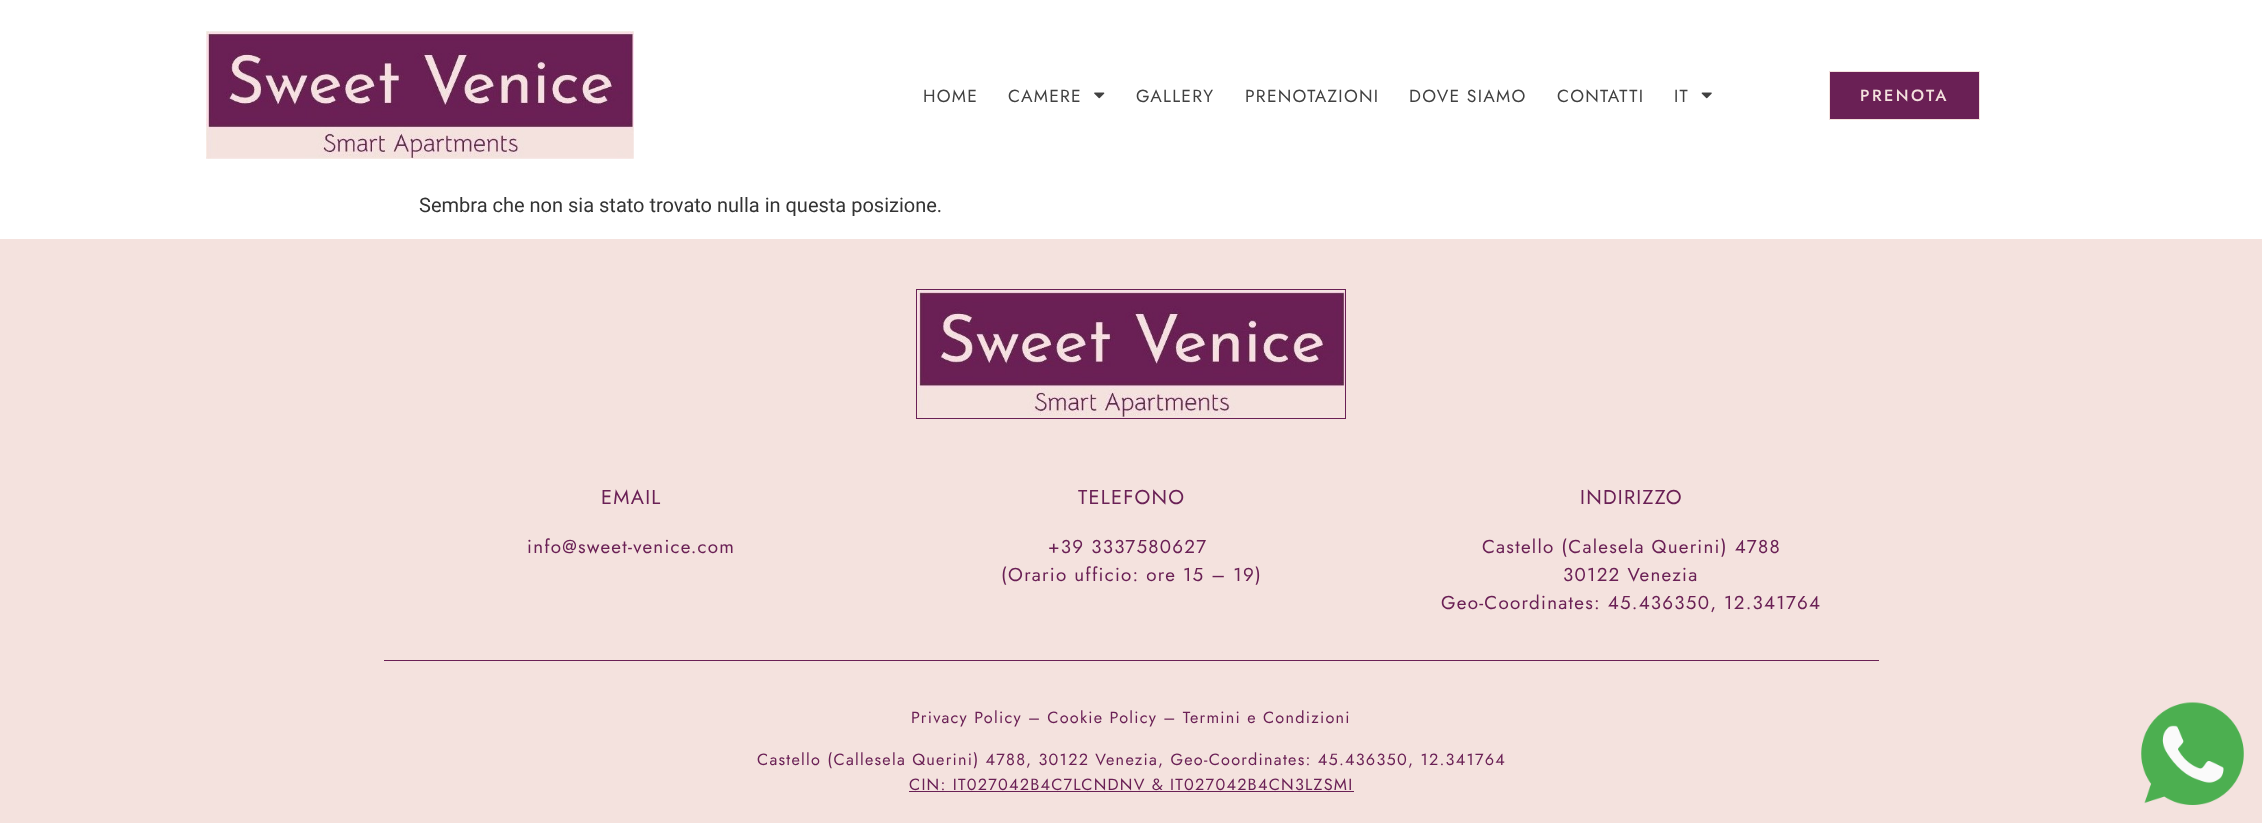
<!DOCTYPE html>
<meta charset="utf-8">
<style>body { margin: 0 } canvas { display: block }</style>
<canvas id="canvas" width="2262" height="823"></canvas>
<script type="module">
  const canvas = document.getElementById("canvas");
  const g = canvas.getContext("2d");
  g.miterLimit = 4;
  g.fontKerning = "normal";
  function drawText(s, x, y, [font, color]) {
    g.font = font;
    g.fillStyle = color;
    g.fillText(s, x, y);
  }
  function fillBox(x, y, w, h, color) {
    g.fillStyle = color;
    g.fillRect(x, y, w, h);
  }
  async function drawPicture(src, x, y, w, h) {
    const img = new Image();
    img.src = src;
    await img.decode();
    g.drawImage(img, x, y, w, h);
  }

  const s1 = ["17.5px Jost", "#414141"];
  const s2 = ["500 16.25px Jost", "#F4E2DE"];
  const s3 = ["20px Roboto", "#333333"];
  const s4 = ["20px Jost", "#6A2055"];
  const s5 = ["18.75px Jost", "#6A2055"];
  const s6 = ["16.25px Jost", "#6A2055"];

  fillBox(0, 0, 2262, 823, "#FFFFFF");
  await drawPicture("pic1.png", 206, 31, 428, 128);
  g.letterSpacing = "1.25px";
  drawText("HOME", 923, 102, s1);
  drawText("CAMERE", 1008, 102, s1);
  await drawPicture("pic2.png", 1094, 92, 11, 7);
  drawText("GALLERY", 1136, 102, s1);
  drawText("PRENOTAZIONI", 1245, 102, s1);
  drawText("DOVE SIAMO", 1409, 102, s1);
  drawText("CONTATTI", 1557, 102, s1);
  drawText("IT", 1674, 102, s1);
  await drawPicture("pic3.png", 1701, 92, 11, 7);
  g.fillStyle = "#6A2055";
  g.beginPath();
  g.rect(1829.5, 71.5, 150, 48);
  g.fill();
  g.strokeStyle = "#F4E2DE";
  g.stroke();
  g.letterSpacing = "2.5px";
  drawText("PRENOTA", 1860, 101, s2);
  g.letterSpacing = "0px";
  drawText("Sembra che non sia stato trovato nulla in questa posizione.", 419, 212, s3);
  fillBox(0, 239, 2262, 584, "#F4E2DE");
  g.strokeStyle = "#6A2055";
  g.strokeRect(916.5, 289.5, 429, 129);
  await drawPicture("pic4.png", 917, 290, 428, 128);
  g.letterSpacing = "1.25px";
  drawText("EMAIL", 601, 504, s4);
  drawText("info@sweet-venice.com", 527, 553, s5);
  drawText("TELEFONO", 1078, 504, s4);
  drawText("+39 3337580627", 1048, 553, s5);
  drawText("(Orario ufficio: ore 15 – 19)", 1001, 581, s5);
  drawText("INDIRIZZO", 1580, 504, s4);
  drawText("Castello (Calesela Querini) 4788", 1482, 553, s5);
  drawText("30122 Venezia", 1563, 581, s5);
  drawText("Geo-Coordinates: 45.436350, 12.341764", 1441, 609, s5);
  fillBox(384, 660, 1495, 1, "#6A2055");
  drawText("Privacy Policy – Cookie Policy – Termini e Condizioni", 911, 723, s6);
  drawText("Castello (Callesela Querini) 4788, 30122 Venezia, Geo-Coordinates: 45.436350, 12.341764", 757, 765, s6);
  drawText("CIN: IT027042B4C7LCNDNV & IT027042B4CN3LZSMI", 909, 790, s6);
  fillBox(909, 791, 445, 1, "#6A2055");
  await drawPicture("pic5.png", 2141, 702, 103, 103);
</script>
